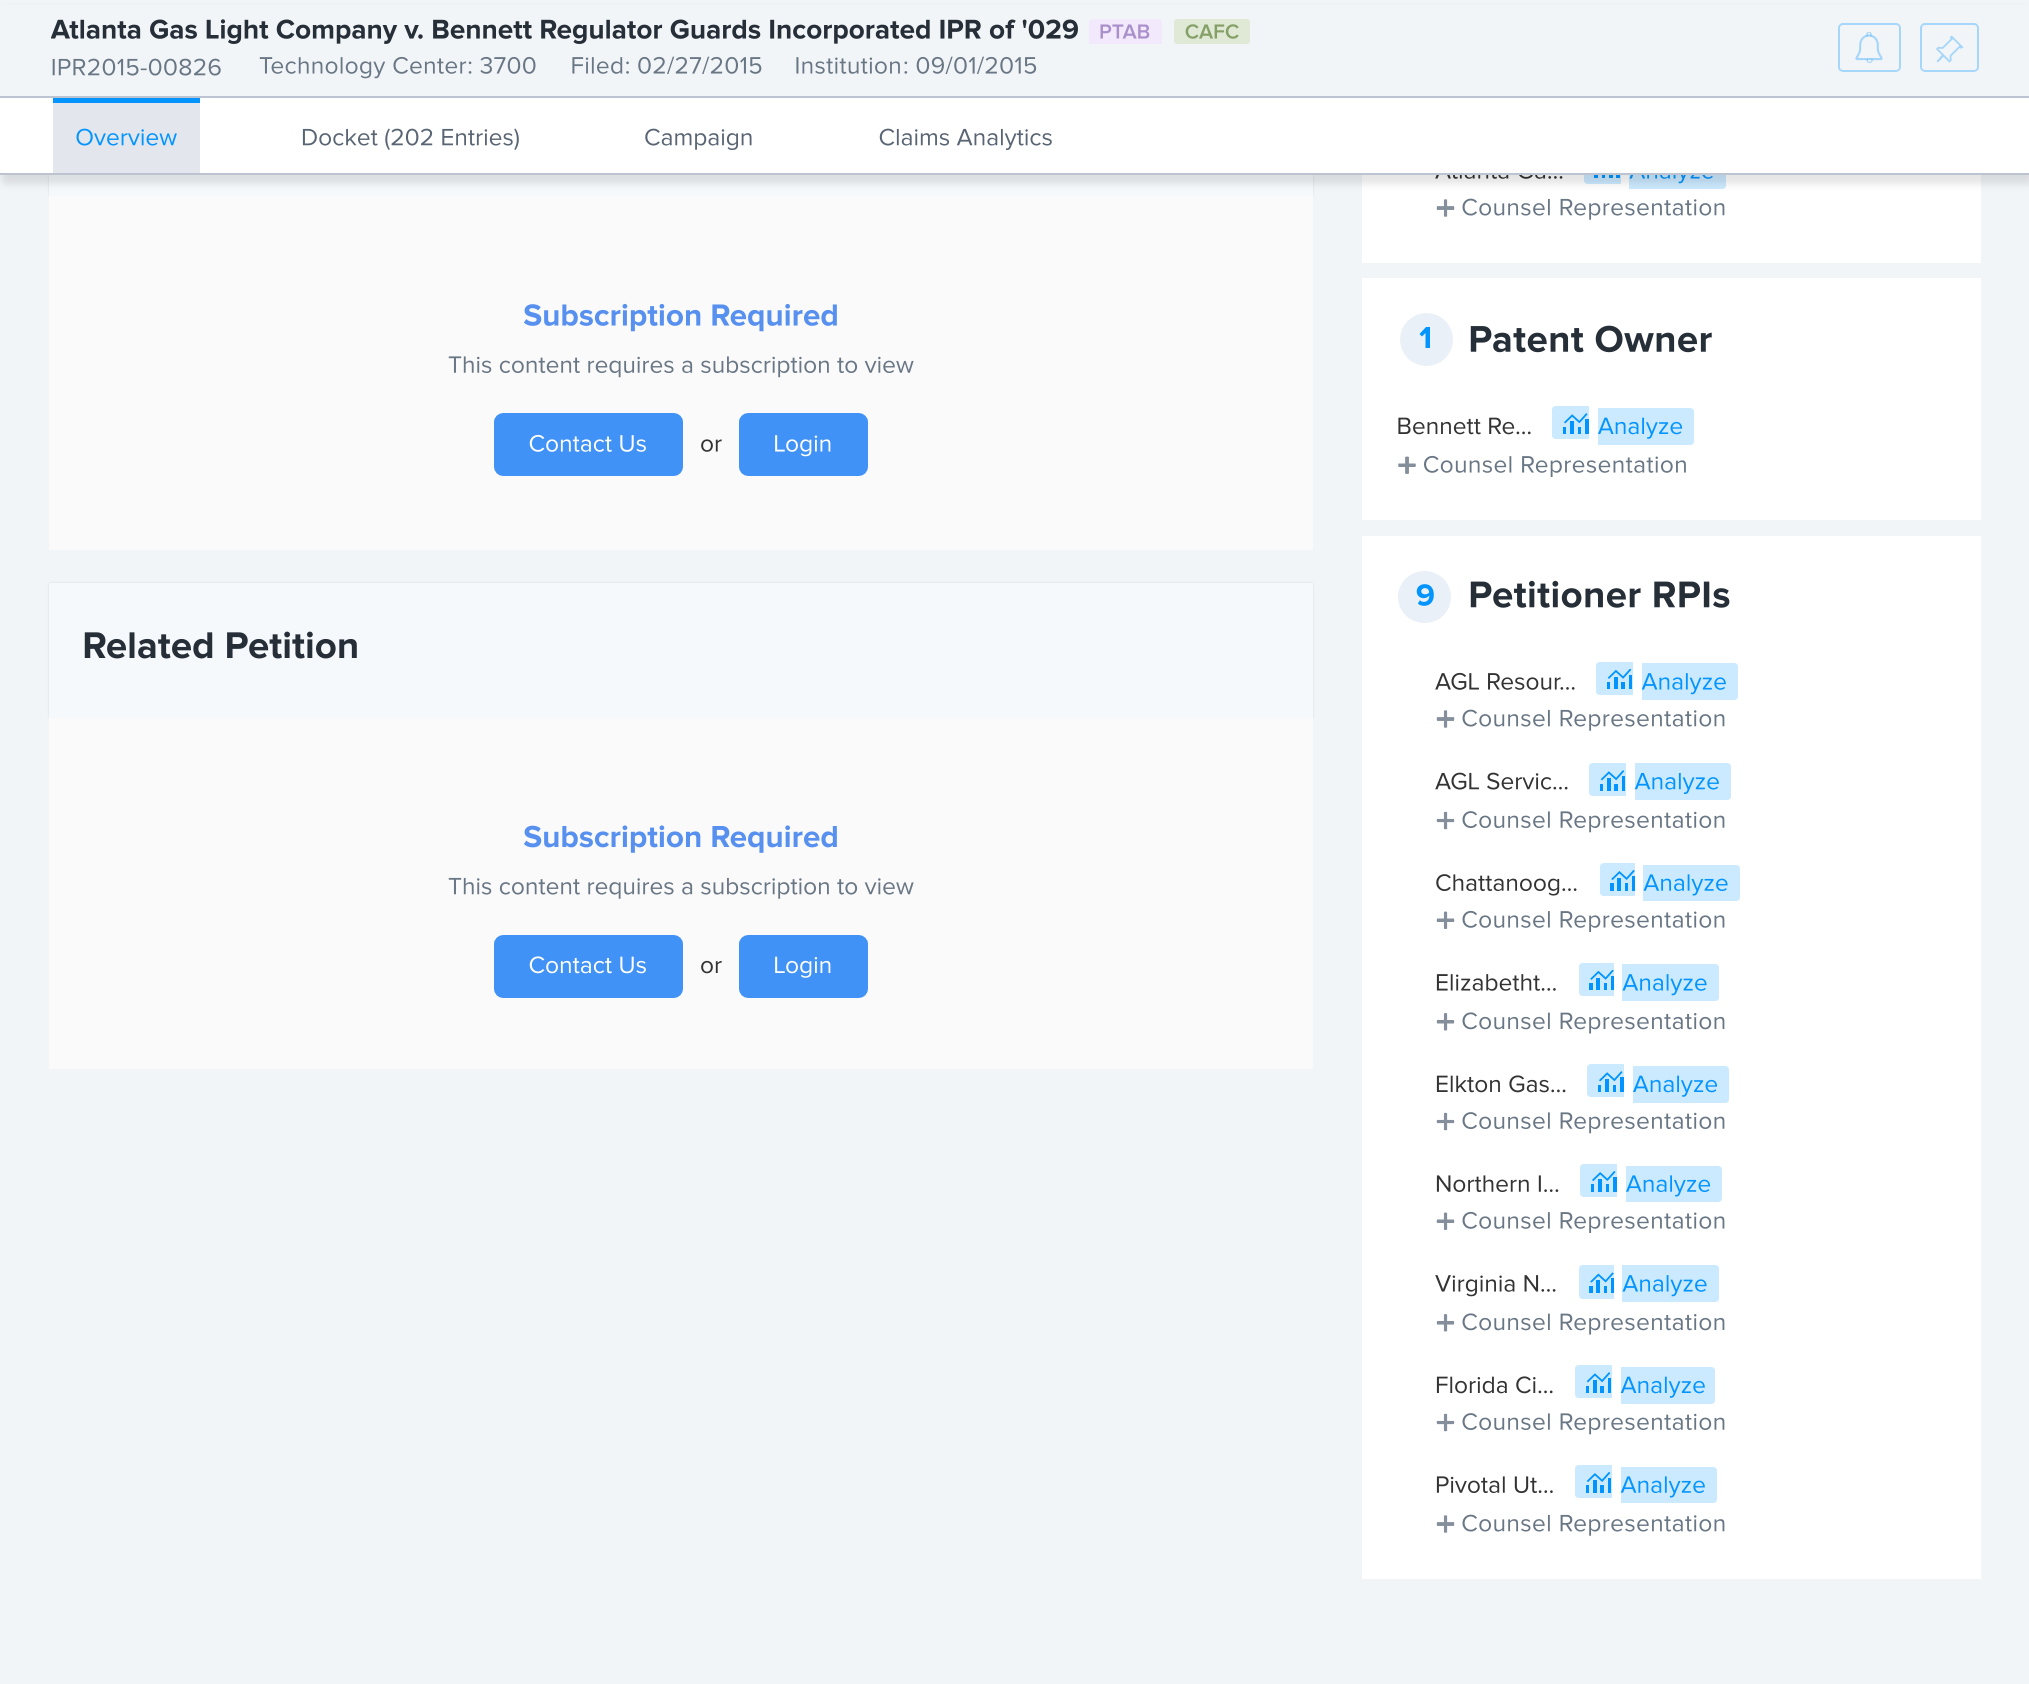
<!DOCTYPE html>
<meta charset="utf-8">
<style>body { margin: 0 } canvas { display: block }</style>
<canvas id="canvas" width="2029" height="1684"></canvas>
<script type="module">
  const canvas = document.getElementById("canvas");
  const g = canvas.getContext("2d");
  g.miterLimit = 4;
  g.fontKerning = "normal";
  function fillBox(x, y, w, h, color) {
    g.fillStyle = color;
    g.fillRect(x, y, w, h);
  }
  function fillRounded(x, y, w, h, r, color) {
    g.fillStyle = color;
    g.beginPath();
    g.roundRect(x, y, w, h, r);
    g.fill();
  }
  async function drawPicture(src, x, y, w, h) {
    const img = new Image();
    img.src = src;
    await img.decode();
    g.drawImage(img, x, y, w, h);
  }

  fillBox(0, 0, 2029, 1684, "#F2F5F8");
  g.fillStyle = "rgba(0, 0, 0, 0.1)";
  g.filter = "blur(1px)";
  g.beginPath();
  g.rect(49, 58, 1264, 138);
  g.fill();
  g.filter = "none";
  fillBox(49, 175, 1264, 21, "#F6F9FB");
  fillBox(1362, 175, 619, 88, "#FFFFFF");
  await drawPicture("pic29.png", 1435, 175, 128, 4);
  g.fillStyle = "#CCEAFF";
  g.beginPath();
  g.roundRect(1584, 151, 37, 33, [4, 0, 0, 4]);
  g.fill();
  g.beginPath();
  g.roundRect(1629, 152, 97, 37, [0, 4, 4, 0]);
  g.fill();
  await drawPicture("pic30.png", 1594, 175, 26, 3);
  await drawPicture("pic31.png", 1629, 175, 84, 9);
  g.fillStyle = "rgba(0, 0, 0, 0.1)";
  g.filter = "blur(3.5px)";
  g.beginPath();
  g.rect(2, 9, 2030, 175);
  g.fill();
  g.filter = "none";
  fillBox(0, 5, 2029, 91, "#F2F5F8");
  await drawPicture("pic1.png", 51, 19, 1027, 25);
  g.fillStyle = "#F2E9FD";
  g.beginPath();
  g.roundRect(1089, 19, 73, 25, [4, 4, 0, 0]);
  g.fill();
  fillRounded(1174, 19, 76, 25, 4, "#E0E8D6");
  await drawPicture("pic2.png", 1185, 24, 54, 15);
  await drawPicture("pic3.png", 1100, 24, 50, 15);
  await drawPicture("pic4.png", 52, 58, 169, 18);
  await drawPicture("pic5.png", 259, 56, 208, 23);
  await drawPicture("pic6.png", 468, 56, 68, 18);
  await drawPicture("pic7.png", 572, 57, 51, 17);
  await drawPicture("pic8.png", 626, 61, 3, 13);
  await drawPicture("pic9.png", 638, 56, 124, 18);
  await drawPicture("pic10.png", 796, 57, 104, 17);
  await drawPicture("pic11.png", 904, 56, 133, 18);
  g.beginPath();
  g.roundRect(1839, 24, 61, 47, 4);
  g.strokeStyle = "#A6D6FA";
  g.lineWidth = 2;
  g.stroke();
  await drawPicture("pic12.png", 1855, 32, 28, 31);
  g.beginPath();
  g.roundRect(1921, 24, 57, 47, 4);
  g.stroke();
  await drawPicture("pic13.png", 1936, 35, 28, 28);
  fillBox(0, 98, 2029, 75, "#FFFFFF");
  fillBox(0, 96, 2029, 2, "#BBC4D0");
  fillBox(0, 173, 2029, 2, "#BBC4D0");
  fillBox(53, 98, 147, 5, "#0494FE");
  fillBox(53, 103, 147, 70, "#E3E7ED");
  await drawPicture("pic14.png", 76, 128, 101, 18);
  await drawPicture("pic15.png", 302, 128, 217, 22);
  await drawPicture("pic16.png", 645, 128, 107, 23);
  await drawPicture("pic17.png", 879, 128, 173, 22);
  fillBox(49, 196, 1264, 354, "#FAFAFA");
  await drawPicture("pic18.png", 524, 303, 313, 29);
  await drawPicture("pic19.png", 448, 356, 466, 22);
  g.fillStyle = "#4192F6";
  g.beginPath();
  g.roundRect(495, 414, 187, 61, 8);
  g.fill();
  g.strokeStyle = "#4192F6";
  g.stroke();
  await drawPicture("pic20.png", 529, 434, 117, 18);
  await drawPicture("pic21.png", 701, 439, 21, 13);
  g.beginPath();
  g.roundRect(740, 414, 127, 61, 8);
  g.fill();
  g.stroke();
  await drawPicture("pic22.png", 775, 435, 56, 22);
  g.fillStyle = "rgba(0, 0, 0, 0.1)";
  g.filter = "blur(1px)";
  g.beginPath();
  g.rect(49, 583, 1264, 135);
  g.fill();
  g.filter = "none";
  fillBox(49, 583, 1264, 135, "#F6F9FB");
  await drawPicture("pic23.png", 84, 631, 273, 28);
  fillBox(49, 718, 1264, 351, "#FAFAFA");
  await drawPicture("pic24.png", 524, 825, 313, 28);
  await drawPicture("pic25.png", 448, 877, 466, 22);
  g.fillStyle = "#4192F6";
  g.beginPath();
  g.roundRect(495, 936, 187, 61, 8);
  g.fill();
  g.stroke();
  await drawPicture("pic26.png", 529, 956, 117, 18);
  await drawPicture("pic27.png", 701, 960, 21, 14);
  g.beginPath();
  g.roundRect(740, 936, 127, 61, 8);
  g.fill();
  g.stroke();
  await drawPicture("pic28.png", 775, 956, 56, 22);
  await drawPicture("pic32.png", 1436, 199, 19, 18);
  await drawPicture("pic33.png", 1462, 198, 263, 22);
  fillBox(1362, 278, 619, 242, "#FFFFFF");
  g.fillStyle = "#EAF0F7";
  g.beginPath();
  g.arc(1426.5, 339.5, 26.5, 0, Math.PI * 2);
  g.fill();
  g.fillStyle = "#0494FE";
  g.beginPath();
  g.moveTo(1430, 348);
  g.lineTo(1430, 327);
  g.lineTo(1426, 327);
  g.lineTo(1419.5, 334);
  g.lineTo(1422, 336.5);
  g.lineTo(1425.5, 333);
  g.lineTo(1425.5, 348);
  g.closePath();
  g.fill();
  await drawPicture("pic34.png", 1470, 325, 242, 28);
  await drawPicture("pic35.png", 1398, 417, 133, 18);
  g.fillStyle = "#CCEAFF";
  g.beginPath();
  g.roundRect(1552, 406, 37, 33, [4, 0, 0, 4]);
  g.fill();
  g.beginPath();
  g.roundRect(1598, 408, 96, 37, [0, 4, 4, 0]);
  g.fill();
  await drawPicture("pic36.png", 1563, 413, 26, 21);
  await drawPicture("pic37.png", 1598, 417, 85, 22);
  await drawPicture("pic38.png", 1398, 456, 18, 18);
  await drawPicture("pic39.png", 1424, 455, 262, 22);
  fillBox(1362, 536, 619, 1043, "#FFFFFF");
  fillRounded(1398, 571, 53, 52, 26, "#EAF0F7");
  await drawPicture("pic40.png", 1416, 584, 18, 22);
  await drawPicture("pic41.png", 1470, 580, 260, 28);
  await drawPicture("pic42.png", 1435, 672, 140, 18);
  g.fillStyle = "#CCEAFF";
  g.beginPath();
  g.roundRect(1596, 662, 37, 33, [4, 0, 0, 4]);
  g.fill();
  g.beginPath();
  g.roundRect(1642, 663, 96, 37, [0, 4, 4, 0]);
  g.fill();
  await drawPicture("pic43.png", 1607, 669, 25, 20);
  await drawPicture("pic44.png", 1641, 673, 85, 22);
  await drawPicture("pic45.png", 1436, 710, 19, 18);
  await drawPicture("pic33.png", 1462, 709, 263, 22);
  await drawPicture("pic46.png", 1435, 772, 133, 18);
  g.beginPath();
  g.roundRect(1589, 763, 37, 33, [4, 0, 0, 4]);
  g.fill();
  g.beginPath();
  g.roundRect(1635, 763, 96, 37, [0, 4, 4, 0]);
  g.fill();
  await drawPicture("pic47.png", 1600, 770, 25, 21);
  await drawPicture("pic48.png", 1634, 772, 85, 22);
  await drawPicture("pic49.png", 1436, 811, 19, 19);
  await drawPicture("pic50.png", 1462, 811, 263, 22);
  await drawPicture("pic51.png", 1436, 874, 141, 22);
  g.beginPath();
  g.roundRect(1600, 863, 35, 33, [4, 0, 0, 4]);
  g.fill();
  g.beginPath();
  g.roundRect(1643, 865, 97, 36, [0, 4, 4, 0]);
  g.fill();
  await drawPicture("pic52.png", 1610, 870, 25, 21);
  await drawPicture("pic53.png", 1643, 874, 85, 22);
  await drawPicture("pic54.png", 1436, 911, 19, 18);
  await drawPicture("pic55.png", 1462, 910, 263, 22);
  await drawPicture("pic56.png", 1436, 974, 120, 17);
  g.beginPath();
  g.roundRect(1579, 963, 35, 33, [4, 0, 0, 4]);
  g.fill();
  g.beginPath();
  g.roundRect(1622, 964, 97, 37, [0, 4, 4, 0]);
  g.fill();
  await drawPicture("pic57.png", 1589, 970, 25, 20);
  await drawPicture("pic58.png", 1622, 974, 85, 22);
  await drawPicture("pic59.png", 1436, 1013, 19, 18);
  await drawPicture("pic60.png", 1462, 1012, 263, 22);
  await drawPicture("pic61.png", 1436, 1075, 130, 18);
  g.beginPath();
  g.roundRect(1587, 1064, 37, 33, [4, 0, 0, 4]);
  g.fill();
  g.beginPath();
  g.roundRect(1633, 1066, 96, 37, [0, 4, 4, 0]);
  g.fill();
  await drawPicture("pic36.png", 1598, 1071, 26, 21);
  await drawPicture("pic37.png", 1633, 1075, 85, 22);
  await drawPicture("pic49.png", 1436, 1112, 19, 19);
  await drawPicture("pic50.png", 1462, 1112, 263, 22);
  await drawPicture("pic62.png", 1436, 1175, 123, 17);
  g.beginPath();
  g.roundRect(1580, 1164, 37, 33, [4, 0, 0, 4]);
  g.fill();
  g.beginPath();
  g.roundRect(1626, 1166, 96, 36, [0, 4, 4, 0]);
  g.fill();
  await drawPicture("pic63.png", 1591, 1171, 26, 21);
  await drawPicture("pic64.png", 1626, 1175, 85, 22);
  await drawPicture("pic65.png", 1436, 1212, 19, 18);
  await drawPicture("pic55.png", 1462, 1211, 263, 22);
  await drawPicture("pic66.png", 1435, 1275, 121, 22);
  g.beginPath();
  g.roundRect(1579, 1265, 35, 34, [4, 0, 0, 4]);
  g.fill();
  g.beginPath();
  g.roundRect(1622, 1265, 97, 37, [0, 4, 4, 0]);
  g.fill();
  await drawPicture("pic67.png", 1589, 1272, 25, 21);
  await drawPicture("pic58.png", 1622, 1275, 85, 22);
  await drawPicture("pic68.png", 1436, 1314, 19, 18);
  await drawPicture("pic60.png", 1462, 1313, 263, 22);
  await drawPicture("pic69.png", 1436, 1376, 117, 18);
  g.beginPath();
  g.roundRect(1575, 1365, 37, 33, [4, 0, 0, 4]);
  g.fill();
  g.beginPath();
  g.roundRect(1621, 1367, 94, 37, [0, 4, 4, 0]);
  g.fill();
  await drawPicture("pic47.png", 1586, 1372, 25, 21);
  await drawPicture("pic70.png", 1620, 1376, 85, 22);
  await drawPicture("pic49.png", 1436, 1413, 19, 19);
  await drawPicture("pic50.png", 1462, 1413, 263, 22);
  await drawPicture("pic71.png", 1436, 1476, 117, 17);
  g.beginPath();
  g.roundRect(1575, 1465, 37, 33, [4, 0, 0, 4]);
  g.fill();
  g.beginPath();
  g.roundRect(1621, 1467, 96, 36, [0, 4, 4, 0]);
  g.fill();
  await drawPicture("pic72.png", 1586, 1472, 25, 21);
  await drawPicture("pic73.png", 1620, 1476, 85, 22);
  await drawPicture("pic74.png", 1436, 1515, 19, 18);
  await drawPicture("pic33.png", 1462, 1514, 263, 22);
</script>
